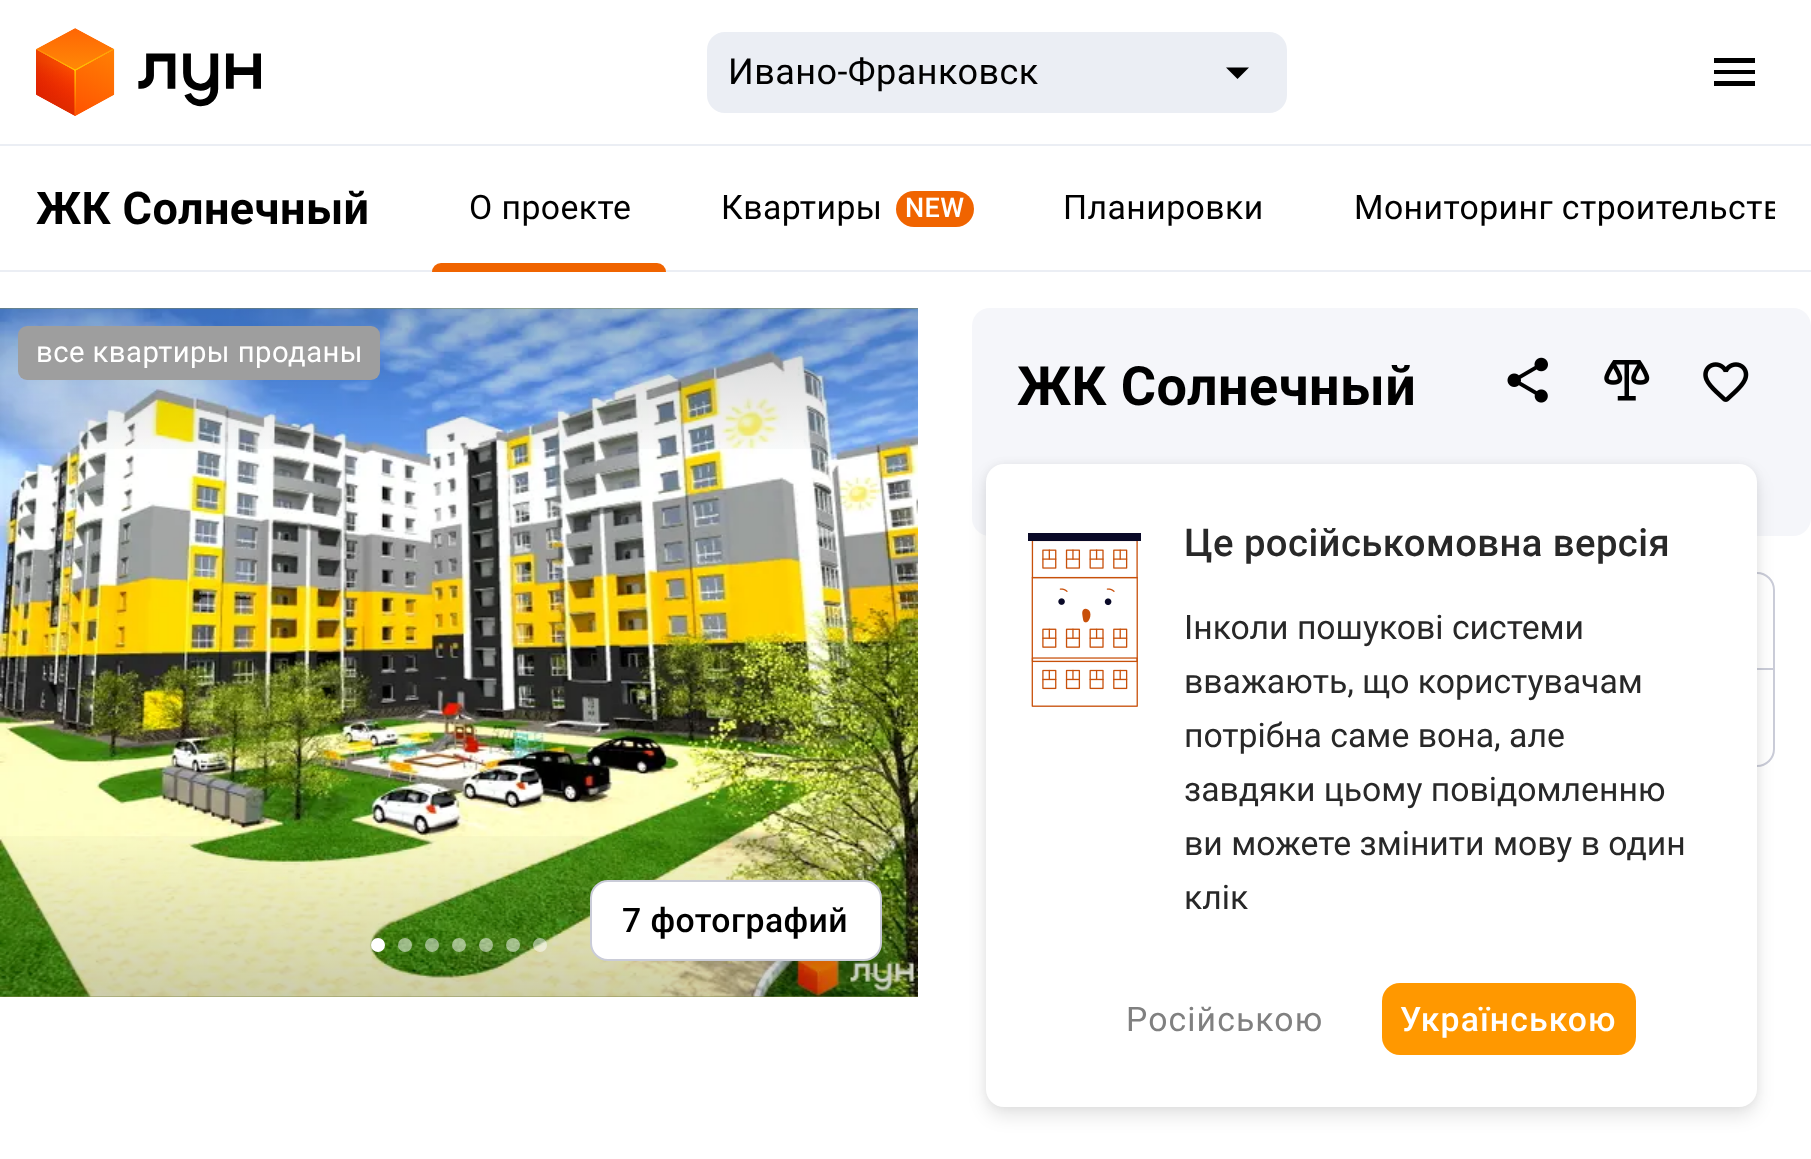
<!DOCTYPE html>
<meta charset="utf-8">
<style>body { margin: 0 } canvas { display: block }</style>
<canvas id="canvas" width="1811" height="1159"></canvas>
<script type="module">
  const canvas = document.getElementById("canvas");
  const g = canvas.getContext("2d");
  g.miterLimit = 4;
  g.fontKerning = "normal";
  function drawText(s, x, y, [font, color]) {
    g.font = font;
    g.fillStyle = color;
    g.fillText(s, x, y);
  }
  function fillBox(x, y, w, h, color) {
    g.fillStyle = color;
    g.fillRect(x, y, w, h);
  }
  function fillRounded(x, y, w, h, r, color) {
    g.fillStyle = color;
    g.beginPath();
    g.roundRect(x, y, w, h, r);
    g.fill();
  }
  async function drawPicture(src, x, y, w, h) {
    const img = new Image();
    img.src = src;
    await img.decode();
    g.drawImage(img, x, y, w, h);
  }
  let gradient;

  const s1 = ["36px Roboto", "#000000"];
  const s2 = ["bold 45px Roboto", "#000000"];
  const s3 = ["33.75px Roboto", "#000000"];
  const s4 = ["500 27px Roboto", "#FFFFFF"];
  const s5 = ["29.25px Roboto", "#FFFFFF"];
  const s6 = ["500 33.75px Roboto", "#000000"];
  const s7 = ["bold 54px Roboto", "#000000"];
  const s8 = ["500 38.25px Roboto", "#282828"];
  const s9 = ["33.75px Roboto", "#282828"];
  const s10 = ["33.75px Roboto", "#808080"];
  const s11 = ["500 33.75px Roboto", "#FFFFFF"];

  fillBox(0, 0, 1811, 1159, "#FFFFFF");
  await drawPicture("pic1.png", 36, 28, 225, 88);
  fillRounded(707, 32, 580, 81, 18, "#EBEEF4");
  g.letterSpacing = "0.45px";
  drawText("Ивано-Франковск", 728, 84, s1);
  g.beginPath();
  g.moveTo(1226, 67.5);
  g.lineTo(1237.5, 79);
  g.lineTo(1249, 67.5);
  g.closePath();
  g.fill();
  g.beginPath();
  g.moveTo(1714, 63);
  g.lineTo(1714, 58);
  g.lineTo(1755, 58);
  g.lineTo(1755, 63);
  g.closePath();
  g.moveTo(1714, 74);
  g.lineTo(1755, 74);
  g.lineTo(1755, 70);
  g.lineTo(1714, 70);
  g.closePath();
  g.moveTo(1714, 86);
  g.lineTo(1755, 86);
  g.lineTo(1755, 81);
  g.lineTo(1714, 81);
  g.closePath();
  g.fill("evenodd");
  fillBox(0, 144, 1811, 2, "#EBEEF4");
  fillBox(0, 270, 1811, 2, "#EBEEF4");
  drawText("ЖК Солнечный", 36, 224, s2);
  drawText("О проекте", 469, 219, s3);
  drawText("Квартиры", 721, 219, s3);
  fillRounded(896, 191, 78, 36, 18, "#F06400");
  drawText("NEW", 905, 217, s4);
  drawText("Планировки", 1063, 219, s3);
  g.save();
  g.beginPath();
  g.rect(423, 144, 1352, 128);
  g.clip();
  drawText("Мониторинг строительств", 1354, 219, s3);
  g.restore();
  g.fillStyle = "#F06400";
  g.beginPath();
  g.roundRect(432, 263, 234, 9, [9, 9, 0, 0]);
  g.fill();
  fillBox(0, 308, 918, 689, "#A3AB5F");
  await drawPicture("pic2.png", 0, 308, 918, 689);
  gradient = g.createLinearGradient(459, 308, 459, 466);
  gradient.addColorStop(0, "rgba(0, 0, 0, 0.2)");
  gradient.addColorStop(1, "rgba(0, 0, 0, 0)");
  g.fillStyle = gradient;
  g.fillRect(0, 308, 918, 141);
  fillRounded(18, 326, 362, 54, 9, "#9E9E9E");
  drawText("все квартиры проданы", 36, 362, s5);
  gradient = g.createLinearGradient(459, 817, 459, 997);
  gradient.addColorStop(0, "rgba(0, 0, 0, 0)");
  gradient.addColorStop(1, "rgba(0, 0, 0, 0.2)");
  g.fillStyle = gradient;
  g.fillRect(0, 836, 918, 161);
  g.fillStyle = "#FFFFFF";
  g.beginPath();
  g.roundRect(591, 881, 290, 79, 17);
  g.fill();
  g.strokeStyle = "#CACCD8";
  g.lineWidth = 2;
  g.stroke();
  drawText("7 фотографий", 622, 932, s6);
  g.fillStyle = "#FFFFFF";
  g.beginPath();
  g.arc(378, 945, 7, 0, Math.PI * 2);
  g.fill();
  g.fillStyle = "rgba(255, 255, 255, 0.5)";
  g.beginPath();
  g.arc(405, 945, 7, 0, Math.PI * 2);
  g.fill();
  g.beginPath();
  g.arc(432, 945, 7, 0, Math.PI * 2);
  g.fill();
  g.beginPath();
  g.arc(459, 945, 7, 0, Math.PI * 2);
  g.fill();
  g.beginPath();
  g.arc(486, 945, 7, 0, Math.PI * 2);
  g.fill();
  g.beginPath();
  g.arc(513, 945, 7, 0, Math.PI * 2);
  g.fill();
  g.beginPath();
  g.arc(540, 945, 7, 0, Math.PI * 2);
  g.fill();
  fillRounded(972, 308, 839, 228, 18, "#F5F6FA");
  drawText("ЖК Солнечный", 1017, 405, s7);
  await drawPicture("pic3.png", 1507, 357, 41, 46);
  await drawPicture("pic4.png", 1604, 360, 46, 41);
  await drawPicture("pic5.png", 1703, 362, 46, 40);
  g.beginPath();
  g.roundRect(1009, 573, 765, 193, 17);
  g.stroke();
  fillBox(1757, 668, 16, 2, "#CACCD8");
  g.fillStyle = "rgba(0, 0, 0, 0.1)";
  g.filter = "blur(9px)";
  g.beginPath();
  g.roundRect(986, 473, 771, 643, 18);
  g.fill();
  g.filter = "none";
  g.fillStyle = "rgba(0, 0, 0, 0.05)";
  g.filter = "blur(4.5px)";
  g.beginPath();
  g.roundRect(986, 464, 771, 643, 18);
  g.fill();
  g.filter = "none";
  fillRounded(986, 464, 771, 643, 18, "#FFFFFF");
  await drawPicture("pic6.png", 1028, 533, 113, 174);
  drawText("Це російськомовна версія", 1184, 556, s8);
  g.letterSpacing = "0px";
  drawText("Інколи пошукові системи", 1184, 639, s9);
  drawText("вважають, що користувачам", 1184, 693, s9);
  drawText("потрібна саме вона, але", 1184, 747, s9);
  drawText("завдяки цьому повідомленню", 1184, 801, s9);
  drawText("ви можете змінити мову в один", 1184, 855, s9);
  drawText("клік", 1184, 909, s9);
  g.letterSpacing = "1.1px";
  drawText("Російською", 1126, 1031, s10);
  fillRounded(1382, 983, 254, 72, 18, "#FF9800");
  drawText("Українською", 1400, 1031, s11);
</script>
